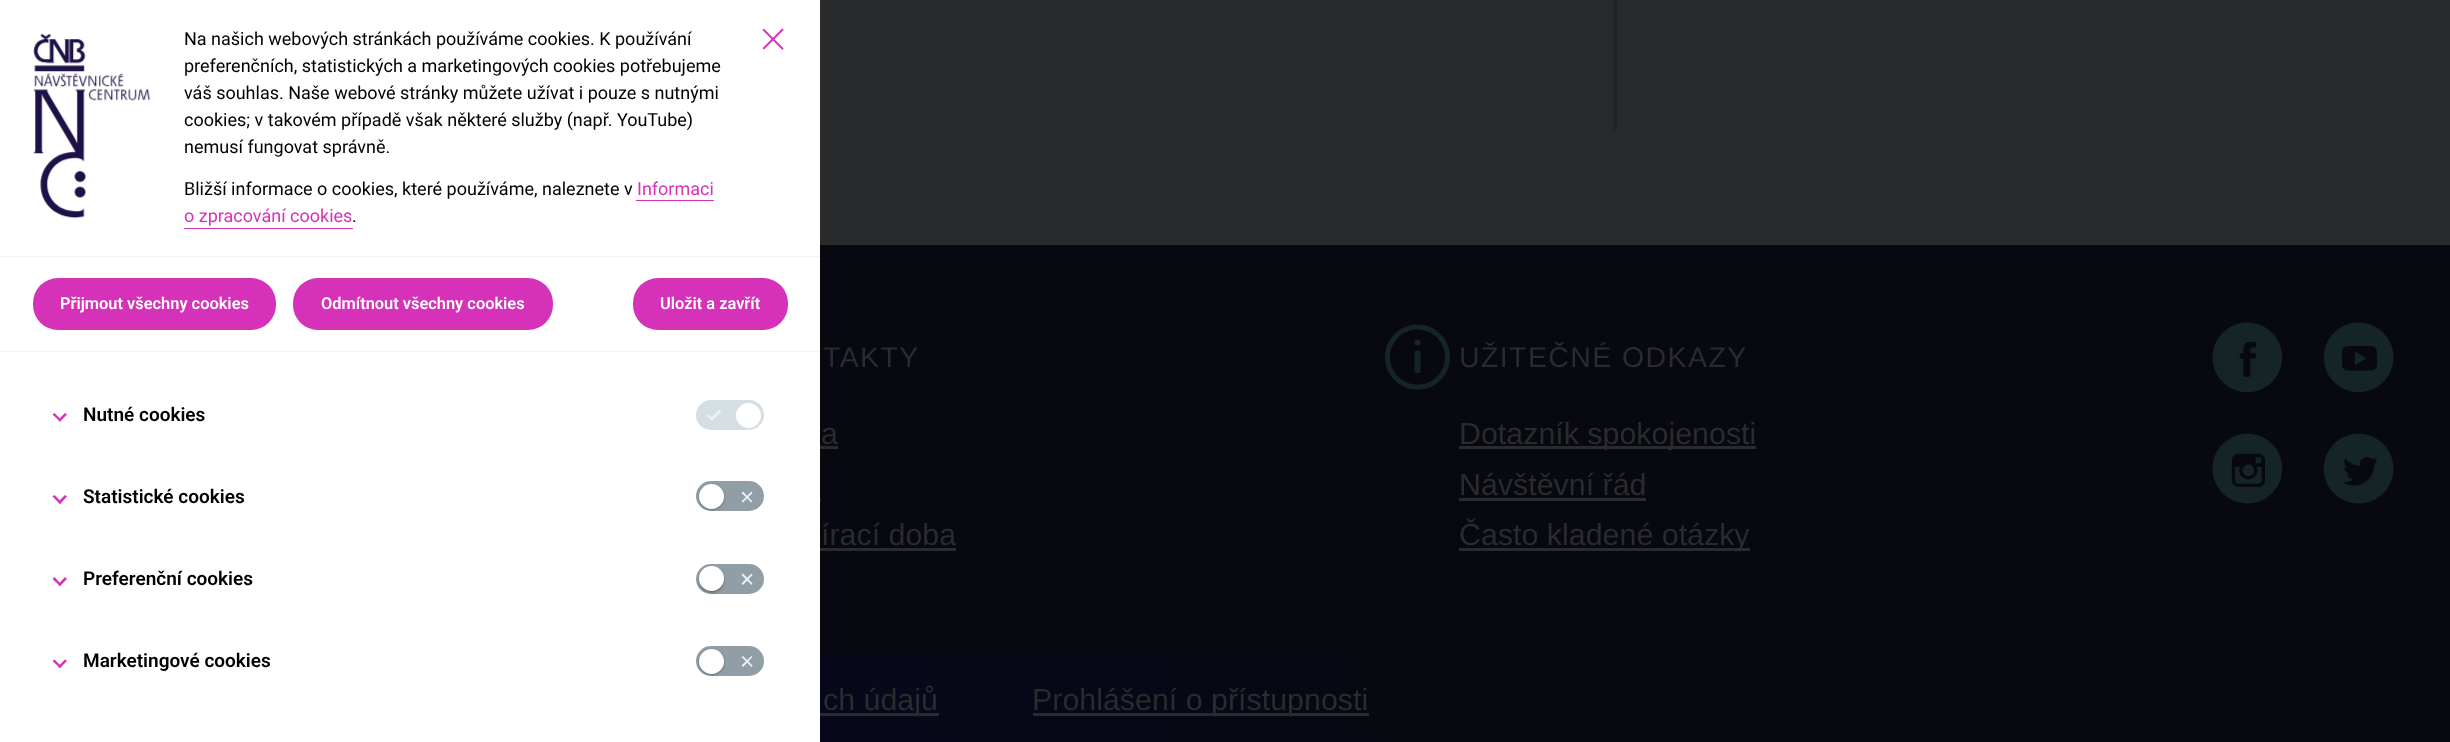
<!DOCTYPE html>
<meta charset="utf-8">
<style>body { margin: 0 } canvas { display: block }</style>
<canvas id="canvas" width="2450" height="742"></canvas>
<script type="module">
  const canvas = document.getElementById("canvas");
  const g = canvas.getContext("2d");
  g.miterLimit = 4;
  g.fontKerning = "normal";
  function drawText(s, x, y, [font, color]) {
    g.font = font;
    g.fillStyle = color;
    g.fillText(s, x, y);
  }
  function fillBox(x, y, w, h, color) {
    g.fillStyle = color;
    g.fillRect(x, y, w, h);
  }
  function fillRounded(x, y, w, h, r, color) {
    g.fillStyle = color;
    g.beginPath();
    g.roundRect(x, y, w, h, r);
    g.fill();
  }
  async function drawPicture(src, x, y, w, h) {
    const img = new Image();
    img.src = src;
    await img.decode();
    g.drawImage(img, x, y, w, h);
  }
  let gradient;

  const s1 = ["18px Roboto", "#000000"];
  const s2 = ["18px Roboto", "#D532B9"];
  const s3 = ["600 16.4px Roboto", "#FFFFFF"];
  const s4 = ["600 19px Roboto", "#000000"];
  const s5 = ["28.5px Liberation Sans", "#2A2B2D"];
  const s6 = ["30.4px Liberation Sans", "#2A2B2D"];

  fillBox(0, 0, 2450, 742, "#282A2C");
  fillBox(0, 0, 820, 742, "#FFFFFF");
  fillBox(0, 256, 820, 1, "#F1F3F5");
  await drawPicture("pic1.png", 33, 33, 118, 186);
  drawText("Na našich webových stránkách používáme cookies. K používání", 184, 45, s1);
  drawText("preferenčních, statistických a marketingových cookies potřebujeme", 184, 72, s1);
  drawText("váš souhlas. Naše webové stránky můžete užívat i pouze s nutnými", 184, 99, s1);
  drawText("cookies; v takovém případě však některé služby (např. YouTube)", 184, 126, s1);
  drawText("nemusí fungovat správně.", 184, 153, s1);
  drawText("Bližší informace o cookies, které používáme, naleznete v", 184, 195, s1);
  drawText("Informaci", 637, 195, s2);
  fillBox(636, 200, 78, 1, "#D532B9");
  drawText("o zpracování cookies", 184, 222, s2);
  fillBox(184, 228, 169, 1, "#D532B9");
  drawText(".", 352, 222, s1);
  await drawPicture("pic2.png", 762, 28, 22, 22);
  fillBox(0, 351, 820, 1, "#F1F3F5");
  fillRounded(33, 278, 243, 52, 25, "#D532B9");
  drawText("Přijmout všechny cookies", 60, 309, s3);
  fillRounded(293, 278, 260, 52, 25, "#D532B9");
  drawText("Odmítnout všechny cookies", 321, 309, s3);
  fillRounded(633, 278, 155, 52, 25, "#D532B9");
  drawText("Uložit a zavřít", 660, 309, s3);
  g.fillStyle = "#D532B9";
  g.beginPath();
  g.moveTo(65, 413);
  g.lineTo(67, 414.5);
  g.lineTo(60, 421.5);
  g.lineTo(58, 420);
  g.closePath();
  g.fill();
  g.beginPath();
  g.moveTo(54.5, 413);
  g.lineTo(61.5, 420);
  g.lineTo(60, 421.5);
  g.lineTo(52.5, 414.5);
  g.closePath();
  g.fill();
  drawText("Nutné cookies", 83, 421, s4);
  fillRounded(696, 400, 68, 30, 15, "#D5DEE2");
  g.fillStyle = "#ECF2FA";
  g.beginPath();
  g.moveTo(719.5, 409.5);
  g.lineTo(721.5, 411);
  g.lineTo(712, 420.5);
  g.lineTo(710, 419);
  g.closePath();
  g.fill();
  g.beginPath();
  g.moveTo(709, 414.5);
  g.lineTo(713.5, 419);
  g.lineTo(712, 420.5);
  g.lineTo(707, 416);
  g.closePath();
  g.fill();
  g.fillStyle = "#FFFFFF";
  g.beginPath();
  g.arc(748.5, 415.5, 12.5, 0, Math.PI * 2);
  g.fill();
  g.fillStyle = "#D532B9";
  g.beginPath();
  g.moveTo(65, 495);
  g.lineTo(67, 496.5);
  g.lineTo(60, 504);
  g.lineTo(58, 502);
  g.closePath();
  g.fill();
  g.beginPath();
  g.moveTo(54.5, 495);
  g.lineTo(61.5, 502);
  g.lineTo(60, 504);
  g.lineTo(52.5, 496.5);
  g.closePath();
  g.fill();
  drawText("Statistické cookies", 83, 503, s4);
  fillRounded(696, 481, 68, 30, 15, "#919EA6");
  g.fillStyle = "rgba(24, 32, 35, 0.36)";
  g.filter = "blur(1px)";
  g.beginPath();
  g.roundRect(699, 485, 25, 25, 12.5);
  g.fill();
  g.filter = "none";
  g.fillStyle = "#FFFFFF";
  g.beginPath();
  g.arc(711.5, 496.5, 12.5, 0, Math.PI * 2);
  g.fill();
  g.fillStyle = "#ECF2FA";
  g.beginPath();
  g.moveTo(751.5, 491.5);
  g.lineTo(752.5, 493);
  g.lineTo(743, 502.5);
  g.lineTo(741.5, 501.5);
  g.closePath();
  g.fill();
  g.beginPath();
  g.moveTo(741.5, 493);
  g.lineTo(743, 491.5);
  g.lineTo(752.5, 501.5);
  g.lineTo(751.5, 502.5);
  g.closePath();
  g.fill();
  g.fillStyle = "#D532B9";
  g.beginPath();
  g.moveTo(65, 577);
  g.lineTo(67, 579);
  g.lineTo(60, 586);
  g.lineTo(58, 584.5);
  g.closePath();
  g.fill();
  g.beginPath();
  g.moveTo(54.5, 577);
  g.lineTo(61.5, 584.5);
  g.lineTo(60, 586);
  g.lineTo(52.5, 579);
  g.closePath();
  g.fill();
  drawText("Preferenční cookies", 83, 585, s4);
  fillRounded(696, 564, 68, 30, 15, "#919EA6");
  g.fillStyle = "rgba(24, 32, 35, 0.36)";
  g.filter = "blur(1px)";
  g.beginPath();
  g.roundRect(699, 568, 25, 25, 12.5);
  g.fill();
  g.filter = "none";
  g.fillStyle = "#FFFFFF";
  g.beginPath();
  g.arc(711.5, 578.5, 12.5, 0, Math.PI * 2);
  g.fill();
  g.fillStyle = "#ECF2FA";
  g.beginPath();
  g.moveTo(751.5, 573.5);
  g.lineTo(752.5, 575);
  g.lineTo(743, 585);
  g.lineTo(741.5, 583.5);
  g.closePath();
  g.fill();
  g.beginPath();
  g.moveTo(741.5, 575);
  g.lineTo(743, 573.5);
  g.lineTo(752.5, 583.5);
  g.lineTo(751.5, 585);
  g.closePath();
  g.fill();
  g.fillStyle = "#D532B9";
  g.beginPath();
  g.moveTo(65, 659.5);
  g.lineTo(67, 661);
  g.lineTo(60, 668);
  g.lineTo(58, 666.5);
  g.closePath();
  g.fill();
  g.beginPath();
  g.moveTo(54.5, 659.5);
  g.lineTo(61.5, 666.5);
  g.lineTo(60, 668);
  g.lineTo(52.5, 661);
  g.closePath();
  g.fill();
  drawText("Marketingové cookies", 83, 667, s4);
  fillRounded(696, 646, 68, 30, 15, "#919EA6");
  g.fillStyle = "rgba(24, 32, 35, 0.36)";
  g.filter = "blur(1px)";
  g.beginPath();
  g.roundRect(699, 650, 25, 25, 12.5);
  g.fill();
  g.filter = "none";
  g.fillStyle = "#FFFFFF";
  g.beginPath();
  g.arc(711.5, 661.5, 12.5, 0, Math.PI * 2);
  g.fill();
  g.fillStyle = "#ECF2FA";
  g.beginPath();
  g.moveTo(751.5, 656);
  g.lineTo(752.5, 657);
  g.lineTo(743, 667);
  g.lineTo(741.5, 665.5);
  g.closePath();
  g.fill();
  g.beginPath();
  g.moveTo(741.5, 657);
  g.lineTo(743, 656);
  g.lineTo(752.5, 665.5);
  g.lineTo(751.5, 667);
  g.closePath();
  g.fill();
  fillBox(1613, 0, 4, 131, "#222425");
  fillBox(820, 245, 1630, 409, "#080811");
  g.letterSpacing = "1.4px";
  drawText("TAKTY", 823, 367, s5);
  g.letterSpacing = "0px";
  drawText("a", 821, 444, s6);
  fillBox(820, 446, 18, 3, "#2A2B2D");
  fillBox(820, 498, 1, 3, "#2A2B2D");
  drawText("írací doba", 821, 545, s6);
  fillBox(820, 548, 136, 3, "#2A2B2D");
  await drawPicture("pic3.png", 1384, 324, 67, 66);
  g.letterSpacing = "1.4px";
  drawText("UŽITEČNÉ ODKAZY", 1459, 367, s5);
  fillBox(1459, 446, 297, 3, "#2A2B2D");
  g.letterSpacing = "0px";
  drawText("Dotazník spokojenosti", 1459, 444, s6);
  drawText("Návštěvní řád", 1459, 495, s6);
  fillBox(1459, 498, 187, 3, "#2A2B2D");
  fillBox(1459, 548, 291, 3, "#2A2B2D");
  drawText("Často kladené otázky", 1459, 545, s6);
  await drawPicture("pic4.png", 2212, 322, 71, 71);
  await drawPicture("pic5.png", 2323, 322, 71, 71);
  await drawPicture("pic6.png", 2212, 433, 71, 71);
  await drawPicture("pic7.png", 2323, 433, 71, 71);
  gradient = g.createLinearGradient(0, 698, 2450, 698);
  gradient.addColorStop(0.01, "#080811");
  gradient.addColorStop(0.23, "#06081F");
  gradient.addColorStop(0.57, "#080811");
  g.fillStyle = gradient;
  g.fillRect(820, 654, 1630, 88);
  fillBox(820, 713, 119, 3, "#2A2B2D");
  drawText("ch údajů", 823, 710, s6);
  fillBox(1033, 713, 336, 3, "#2A2B2D");
  drawText("Prohlášení o přístupnosti", 1032, 710, s6);
</script>
